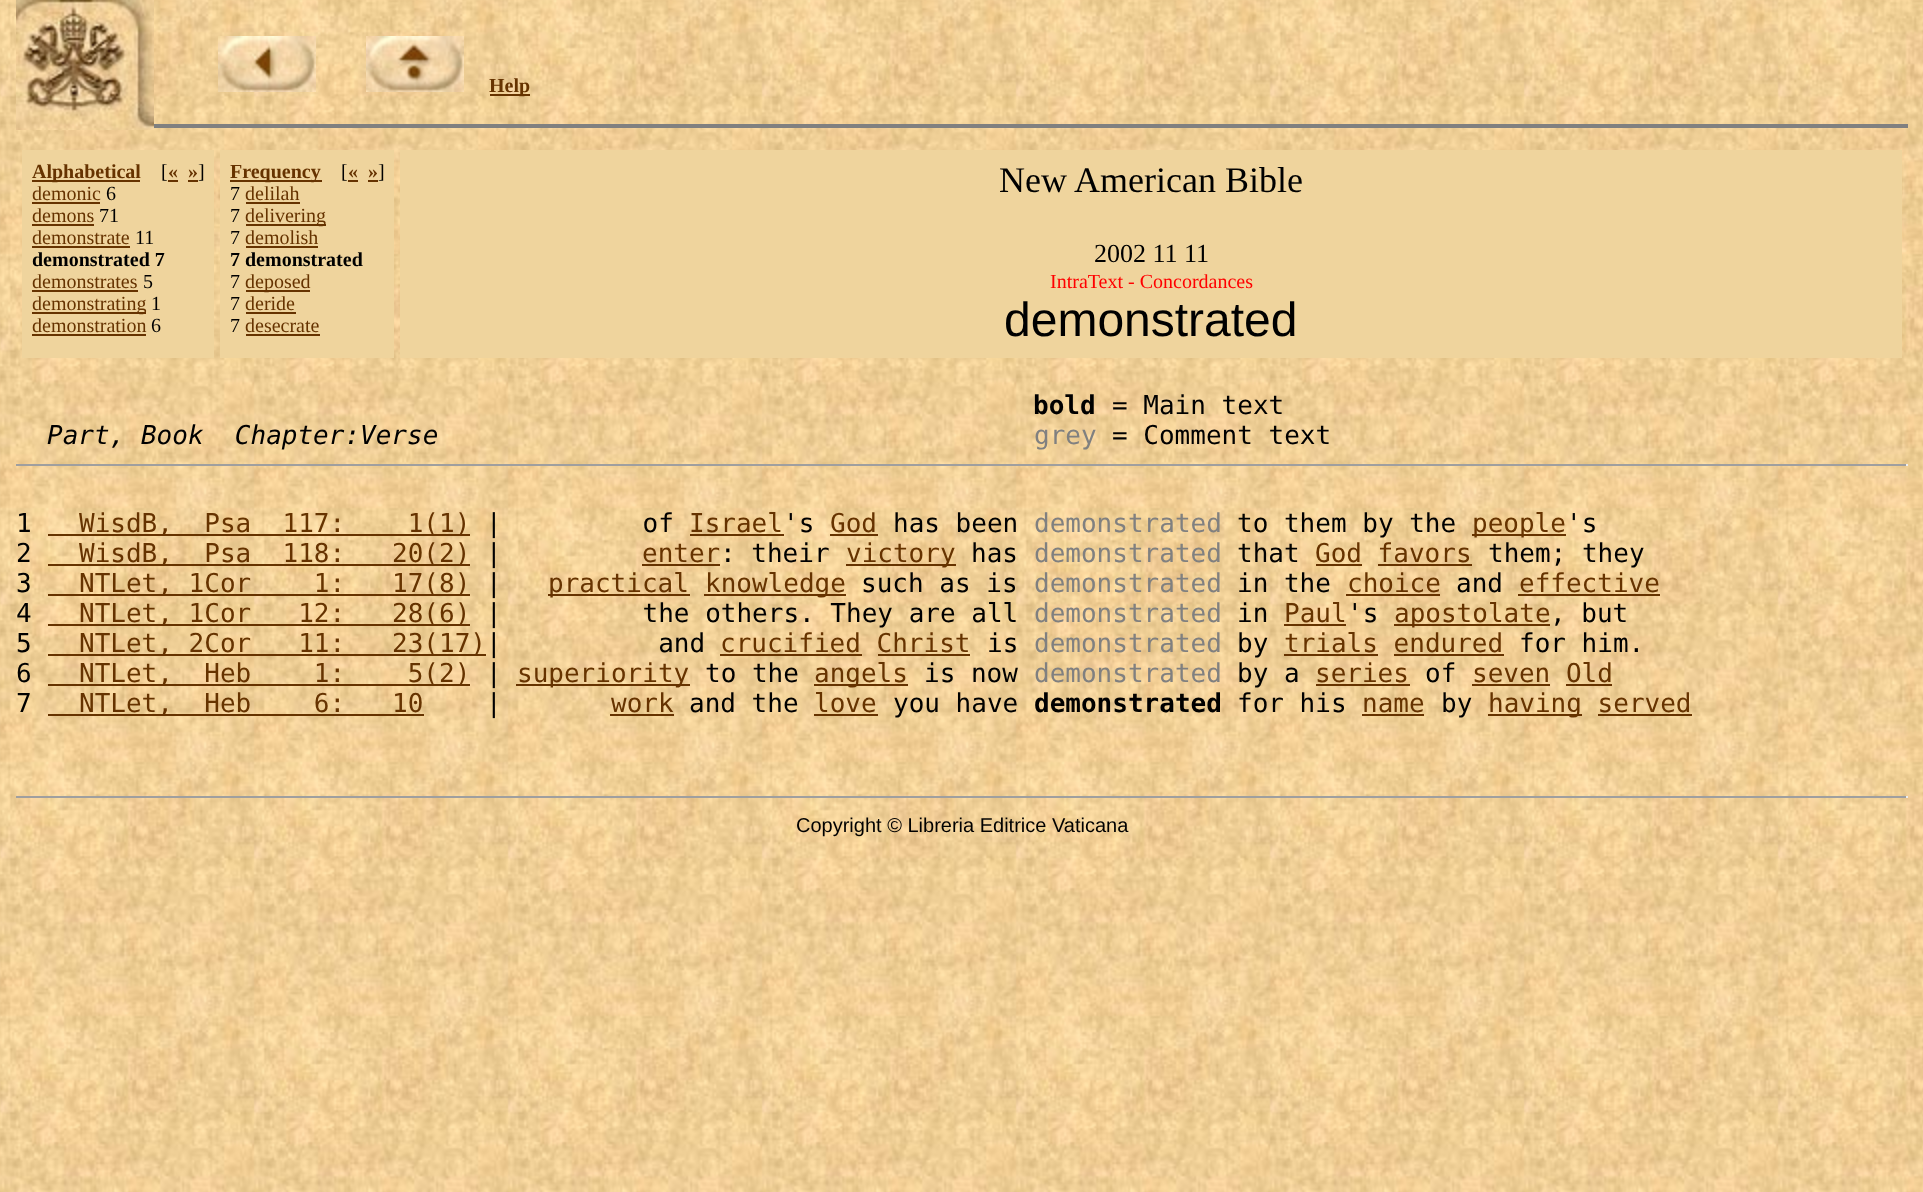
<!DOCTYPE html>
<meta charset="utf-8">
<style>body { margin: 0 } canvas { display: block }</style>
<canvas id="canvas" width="1923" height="1192"></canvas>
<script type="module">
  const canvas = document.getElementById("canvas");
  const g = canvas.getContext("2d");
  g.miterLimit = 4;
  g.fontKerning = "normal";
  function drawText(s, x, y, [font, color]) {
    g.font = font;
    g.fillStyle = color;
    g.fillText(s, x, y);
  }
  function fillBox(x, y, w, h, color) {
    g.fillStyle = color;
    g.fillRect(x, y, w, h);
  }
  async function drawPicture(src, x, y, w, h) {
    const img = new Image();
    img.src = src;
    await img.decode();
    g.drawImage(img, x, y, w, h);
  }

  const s1 = ["bold 20px Liberation Serif", "#663300"];
  const s2 = ["20px Liberation Serif", "#000000"];
  const s3 = ["20px Liberation Serif", "#663300"];
  const s4 = ["bold 20px Liberation Serif", "#000000"];
  const s5 = ["36px Liberation Serif", "#000000"];
  const s6 = ["26px Liberation Serif", "#000000"];
  const s7 = ["20px Liberation Serif", "#FF0000"];
  const s8 = ["48px Liberation Sans", "#000000"];
  const s9 = ["bold 26px DejaVu Sans Mono", "#000000"];
  const s10 = ["26px DejaVu Sans Mono", "#000000"];
  const s11 = ["italic 26px DejaVu Sans Mono", "#000000"];
  const s12 = ["26px DejaVu Sans Mono", "#808080"];
  const s13 = ["26px DejaVu Sans Mono", "#663300"];
  const s14 = ["20px Liberation Sans", "#000000"];

  fillBox(0, 0, 1923, 1192, "#FFFFFF");
  await drawPicture("pic1.png", 0, 0, 1923, 1192);
  await drawPicture("pic2.png", 16, 0, 138, 130);
  await drawPicture("pic3.png", 218, 36, 98, 56);
  await drawPicture("pic4.png", 366, 36, 98, 56);
  fillBox(490, 94, 40, 2, "#663300");
  drawText("Help", 489, 92, s1);
  fillBox(154, 124, 1754, 4, "#808080");
  fillBox(22, 150, 192, 208, "#EFD49D");
  fillBox(32, 180, 108, 2, "#663300");
  drawText("Alphabetical", 32, 178, s1);
  drawText("[", 161, 178, s2);
  drawText("«", 168, 178, s1);
  fillBox(168, 180, 10, 2, "#663300");
  drawText("»", 188, 178, s1);
  fillBox(188, 180, 10, 2, "#663300");
  drawText("]", 198, 178, s2);
  drawText("demonic", 32, 200, s3);
  fillBox(32, 202, 68, 2, "#663300");
  drawText("6", 106, 200, s2);
  drawText("demons", 32, 222, s3);
  fillBox(32, 224, 62, 2, "#663300");
  drawText("71", 99, 222, s2);
  drawText("demonstrate", 32, 244, s3);
  fillBox(32, 246, 98, 2, "#663300");
  drawText("11", 135, 244, s2);
  drawText("demonstrated 7", 32, 266, s4);
  drawText("demonstrates", 32, 288, s3);
  fillBox(32, 290, 106, 2, "#663300");
  drawText("5", 143, 288, s2);
  fillBox(32, 312, 114, 2, "#663300");
  drawText("demonstrating", 32, 310, s3);
  drawText("1", 151, 310, s2);
  drawText("demonstration", 32, 332, s3);
  fillBox(32, 334, 114, 2, "#663300");
  drawText("6", 151, 332, s2);
  fillBox(220, 150, 174, 208, "#EFD49D");
  fillBox(230, 180, 92, 2, "#663300");
  drawText("Frequency", 230, 178, s1);
  drawText("[", 341, 178, s2);
  drawText("«", 348, 178, s1);
  fillBox(348, 180, 10, 2, "#663300");
  drawText("»", 368, 178, s1);
  fillBox(368, 180, 10, 2, "#663300");
  drawText("]", 378, 178, s2);
  drawText("7", 230, 200, s2);
  drawText("delilah", 245, 200, s3);
  fillBox(246, 202, 54, 2, "#663300");
  drawText("7", 230, 222, s2);
  fillBox(246, 224, 80, 2, "#663300");
  drawText("delivering", 245, 222, s3);
  drawText("7", 230, 244, s2);
  drawText("demolish", 245, 244, s3);
  fillBox(246, 246, 72, 2, "#663300");
  drawText("7 demonstrated", 230, 266, s4);
  drawText("7", 230, 288, s2);
  fillBox(246, 290, 64, 2, "#663300");
  drawText("deposed", 245, 288, s3);
  drawText("7", 230, 310, s2);
  drawText("deride", 245, 310, s3);
  fillBox(246, 312, 50, 2, "#663300");
  drawText("7", 230, 332, s2);
  drawText("desecrate", 245, 332, s3);
  fillBox(246, 334, 74, 2, "#663300");
  fillBox(400, 150, 1502, 208, "#EFD49D");
  drawText("New", 999, 192, s5);
  drawText("American Bible", 1074, 192, s5);
  drawText("2002 11 11", 1094, 262, s6);
  drawText("IntraText - Concordances", 1050, 288, s7);
  drawText("demonstrated", 1004, 336, s8);
  drawText("bold", 1033, 414, s9);
  drawText("= Main text", 1112, 414, s10);
  drawText("Part, Book  Chapter:Verse", 47, 444, s11);
  drawText("grey", 1034, 444, s12);
  drawText("= Comment text", 1112, 444, s10);
  fillBox(16, 464, 1892, 2, "#9F9F9F");
  fillBox(1906, 464, 2, 2, "#EEEEEE");
  drawText("1", 16, 532, s10);
  fillBox(48, 534, 422, 2, "#663300");
  drawText("WisdB,  Psa  117:    1(1)", 79, 532, s13);
  drawText("|         of", 486, 532, s10);
  drawText("Israel", 689, 532, s13);
  fillBox(690, 534, 94, 2, "#663300");
  drawText("'s", 783, 532, s10);
  drawText("God", 830, 532, s13);
  fillBox(830, 534, 48, 2, "#663300");
  drawText("has been", 893, 532, s10);
  drawText("demonstrated", 1034, 532, s12);
  drawText("to them by the", 1237, 532, s10);
  fillBox(1472, 534, 94, 2, "#663300");
  drawText("people", 1472, 532, s13);
  drawText("'s", 1566, 532, s10);
  drawText("2", 16, 562, s10);
  fillBox(48, 564, 422, 2, "#663300");
  drawText("WisdB,  Psa  118:   20(2)", 79, 562, s13);
  drawText("|", 486, 562, s10);
  drawText("enter", 642, 562, s13);
  fillBox(642, 564, 78, 2, "#663300");
  drawText(": their", 720, 562, s10);
  fillBox(846, 564, 110, 2, "#663300");
  drawText("victory", 846, 562, s13);
  drawText("has", 971, 562, s10);
  drawText("demonstrated", 1034, 562, s12);
  drawText("that", 1237, 562, s10);
  drawText("God favors", 1315, 562, s13);
  fillBox(1316, 564, 46, 2, "#663300");
  drawText("them; they", 1488, 562, s10);
  fillBox(1378, 564, 94, 2, "#663300");
  drawText("3", 16, 592, s10);
  fillBox(48, 594, 422, 2, "#663300");
  drawText("NTLet, 1Cor    1:   17(8)", 79, 592, s13);
  drawText("|", 486, 592, s10);
  fillBox(548, 594, 142, 2, "#663300");
  drawText("practical", 548, 592, s13);
  fillBox(704, 594, 142, 2, "#663300");
  drawText("knowledge", 705, 592, s13);
  drawText("such as is", 861, 592, s10);
  drawText("demonstrated", 1034, 592, s12);
  drawText("in the", 1237, 592, s10);
  drawText("choice", 1347, 592, s13);
  fillBox(1346, 594, 94, 2, "#663300");
  drawText("and", 1456, 592, s10);
  drawText("effective", 1519, 592, s13);
  fillBox(1518, 594, 142, 2, "#663300");
  drawText("4", 16, 622, s10);
  fillBox(48, 624, 422, 2, "#663300");
  drawText("NTLet, 1Cor   12:   28(6)", 79, 622, s13);
  drawText("|         the others. They are all", 486, 622, s10);
  drawText("demonstrated", 1034, 622, s12);
  drawText("in", 1237, 622, s10);
  drawText("Paul", 1284, 622, s13);
  fillBox(1284, 624, 62, 2, "#663300");
  drawText("'s", 1347, 622, s10);
  fillBox(1394, 624, 156, 2, "#663300");
  drawText("apostolate", 1394, 622, s13);
  drawText(", but", 1550, 622, s10);
  drawText("5", 16, 652, s10);
  fillBox(48, 654, 438, 2, "#663300");
  drawText("NTLet, 2Cor   11:   23(17)", 79, 652, s13);
  drawText("|          and", 486, 652, s10);
  drawText("crucified Christ", 720, 652, s13);
  fillBox(720, 654, 142, 2, "#663300");
  drawText("is", 987, 652, s10);
  drawText("demonstrated", 1034, 652, s12);
  drawText("by", 1237, 652, s10);
  drawText("trials endured", 1284, 652, s13);
  fillBox(1284, 654, 94, 2, "#663300");
  drawText("for him.", 1519, 652, s10);
  fillBox(878, 654, 92, 2, "#663300");
  fillBox(1394, 654, 110, 2, "#663300");
  drawText("6", 16, 682, s10);
  fillBox(48, 684, 422, 2, "#663300");
  drawText("NTLet,  Heb    1:    5(2)", 79, 682, s13);
  drawText("|", 486, 682, s10);
  fillBox(516, 684, 174, 2, "#663300");
  drawText("superiority", 517, 682, s13);
  drawText("to the", 705, 682, s10);
  fillBox(814, 684, 94, 2, "#663300");
  drawText("angels", 814, 682, s13);
  drawText("is now", 924, 682, s10);
  drawText("demonstrated", 1034, 682, s12);
  drawText("by a", 1237, 682, s10);
  drawText("series", 1315, 682, s13);
  fillBox(1316, 684, 94, 2, "#663300");
  drawText("of", 1425, 682, s10);
  drawText("seven Old", 1472, 682, s13);
  fillBox(1472, 684, 78, 2, "#663300");
  fillBox(1566, 684, 46, 2, "#663300");
  drawText("7", 16, 712, s10);
  fillBox(48, 714, 376, 2, "#663300");
  drawText("NTLet,  Heb    6:   10", 79, 712, s13);
  drawText("|", 486, 712, s10);
  drawText("work", 611, 712, s13);
  fillBox(610, 714, 64, 2, "#663300");
  drawText("and the", 689, 712, s10);
  drawText("love", 814, 712, s13);
  fillBox(814, 714, 64, 2, "#663300");
  drawText("you have", 893, 712, s10);
  drawText("demonstrated", 1034, 712, s9);
  drawText("for his", 1237, 712, s10);
  drawText("name", 1362, 712, s13);
  fillBox(1362, 714, 62, 2, "#663300");
  drawText("by", 1441, 712, s10);
  fillBox(1488, 714, 94, 2, "#663300");
  drawText("having served", 1488, 712, s13);
  fillBox(1598, 714, 94, 2, "#663300");
  fillBox(16, 796, 1892, 2, "#9F9F9F");
  fillBox(1906, 796, 2, 2, "#EEEEEE");
  drawText("Copyright © Libreria Editrice Vaticana", 796, 832, s14);
</script>
